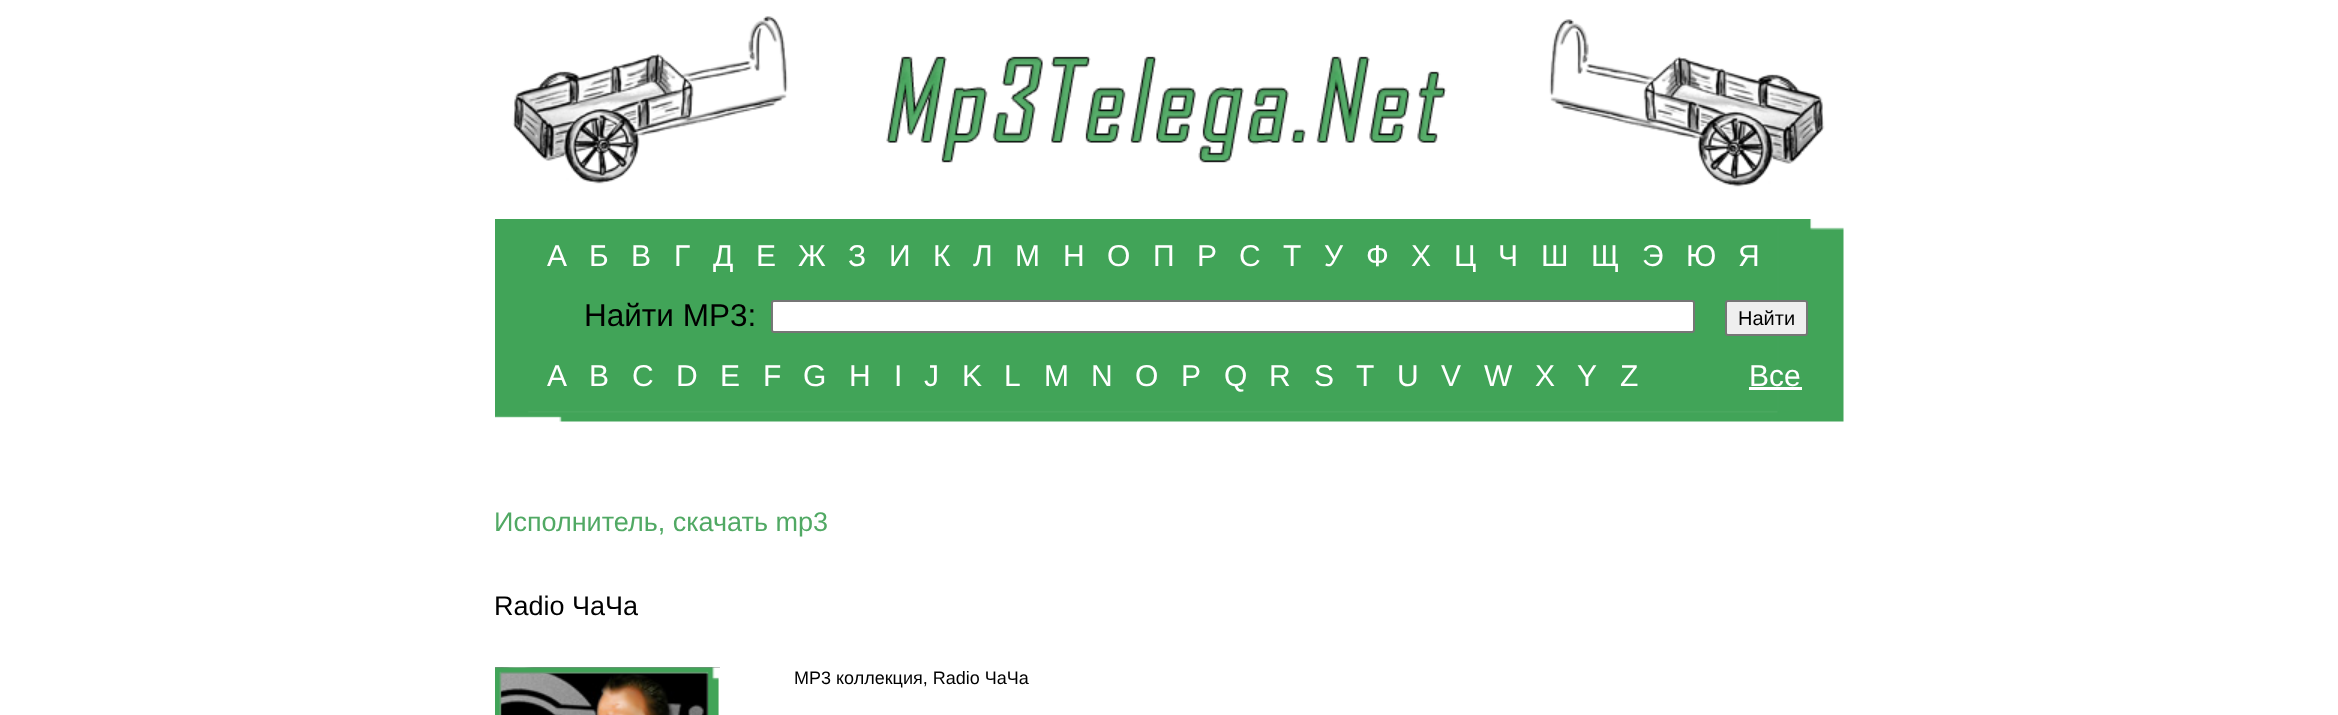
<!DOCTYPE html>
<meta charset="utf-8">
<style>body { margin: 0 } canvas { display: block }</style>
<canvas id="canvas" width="2338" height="715"></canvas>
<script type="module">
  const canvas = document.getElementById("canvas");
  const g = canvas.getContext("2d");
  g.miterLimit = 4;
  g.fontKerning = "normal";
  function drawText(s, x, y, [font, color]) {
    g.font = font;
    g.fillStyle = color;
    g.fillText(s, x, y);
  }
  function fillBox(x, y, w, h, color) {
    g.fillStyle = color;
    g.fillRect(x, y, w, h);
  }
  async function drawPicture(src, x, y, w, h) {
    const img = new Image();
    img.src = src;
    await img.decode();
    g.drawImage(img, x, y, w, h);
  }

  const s1 = ["30px Liberation Sans", "#FFFFFF"];
  const s2 = ["31.5px Liberation Sans", "#000000"];
  const s3 = ["20px Liberation Sans", "#000000"];
  const s4 = ["27px Liberation Sans", "#51A964"];
  const s5 = ["27px Liberation Sans", "#000000"];
  const s6 = ["18px Liberation Sans", "#000000"];

  fillBox(0, 0, 2338, 715, "#FFFFFF");
  await drawPicture("pic1.png", 512, 16, 1313, 171);
  await drawPicture("pic2.png", 495, 219, 1349, 203);
  drawText("А", 547, 266, s1);
  drawText("Б", 589, 266, s1);
  drawText("В", 631, 266, s1);
  drawText("Г", 674, 266, s1);
  drawText("Д", 713, 266, s1);
  drawText("Е", 756, 266, s1);
  drawText("Ж", 798, 266, s1);
  drawText("З", 848, 266, s1);
  drawText("И", 889, 266, s1);
  drawText("К", 933, 266, s1);
  drawText("Л", 973, 266, s1);
  drawText("М", 1015, 266, s1);
  drawText("Н", 1063, 266, s1);
  drawText("О", 1107, 266, s1);
  drawText("П", 1153, 266, s1);
  drawText("Р", 1197, 266, s1);
  drawText("С", 1239, 266, s1);
  drawText("Т", 1283, 266, s1);
  drawText("У", 1324, 266, s1);
  drawText("Ф", 1366, 266, s1);
  drawText("Х", 1411, 266, s1);
  drawText("Ц", 1454, 266, s1);
  drawText("Ч", 1498, 266, s1);
  drawText("Ш", 1541, 266, s1);
  drawText("Щ", 1591, 266, s1);
  drawText("Э", 1642, 266, s1);
  drawText("Ю", 1686, 266, s1);
  drawText("Я", 1738, 266, s1);
  drawText("Найти MP3:", 584, 326, s2);
  g.fillStyle = "#FFFFFF";
  g.beginPath();
  g.roundRect(772, 301, 922, 31, 2);
  g.fill();
  g.strokeStyle = "#767676";
  g.lineWidth = 2;
  g.stroke();
  g.fillStyle = "#EFEFEF";
  g.beginPath();
  g.roundRect(1726, 301, 81, 34, 2);
  g.fill();
  g.stroke();
  drawText("Найти", 1738, 325, s3);
  drawText("A", 547, 386, s1);
  drawText("B", 589, 386, s1);
  drawText("C", 632, 386, s1);
  drawText("D", 676, 386, s1);
  drawText("E", 720, 386, s1);
  drawText("F", 763, 386, s1);
  drawText("G", 803, 386, s1);
  drawText("H", 849, 386, s1);
  drawText("I", 894, 386, s1);
  drawText("J", 924, 386, s1);
  drawText("K", 962, 386, s1);
  drawText("L", 1004, 386, s1);
  drawText("M", 1044, 386, s1);
  drawText("N", 1091, 386, s1);
  drawText("O", 1135, 386, s1);
  drawText("P", 1181, 386, s1);
  drawText("Q", 1224, 386, s1);
  drawText("R", 1269, 386, s1);
  drawText("S", 1314, 386, s1);
  drawText("T", 1356, 386, s1);
  drawText("U", 1397, 386, s1);
  drawText("V", 1441, 386, s1);
  drawText("W", 1484, 386, s1);
  drawText("X", 1535, 386, s1);
  drawText("Y", 1577, 386, s1);
  drawText("Z", 1620, 386, s1);
  drawText("Все", 1749, 386, s1);
  fillBox(1749, 387, 53, 3, "#FFFFFF");
  drawText("Исполнитель, скачать mp3", 494, 531, s4);
  drawText("Radio ЧаЧа", 494, 615, s5);
  await drawPicture("pic3.png", 495, 667, 225, 48);
  await drawPicture("pic4.png", 495, 667, 225, 48);
  drawText("MP3 коллекция, Radio ЧаЧа", 794, 684, s6);
</script>
